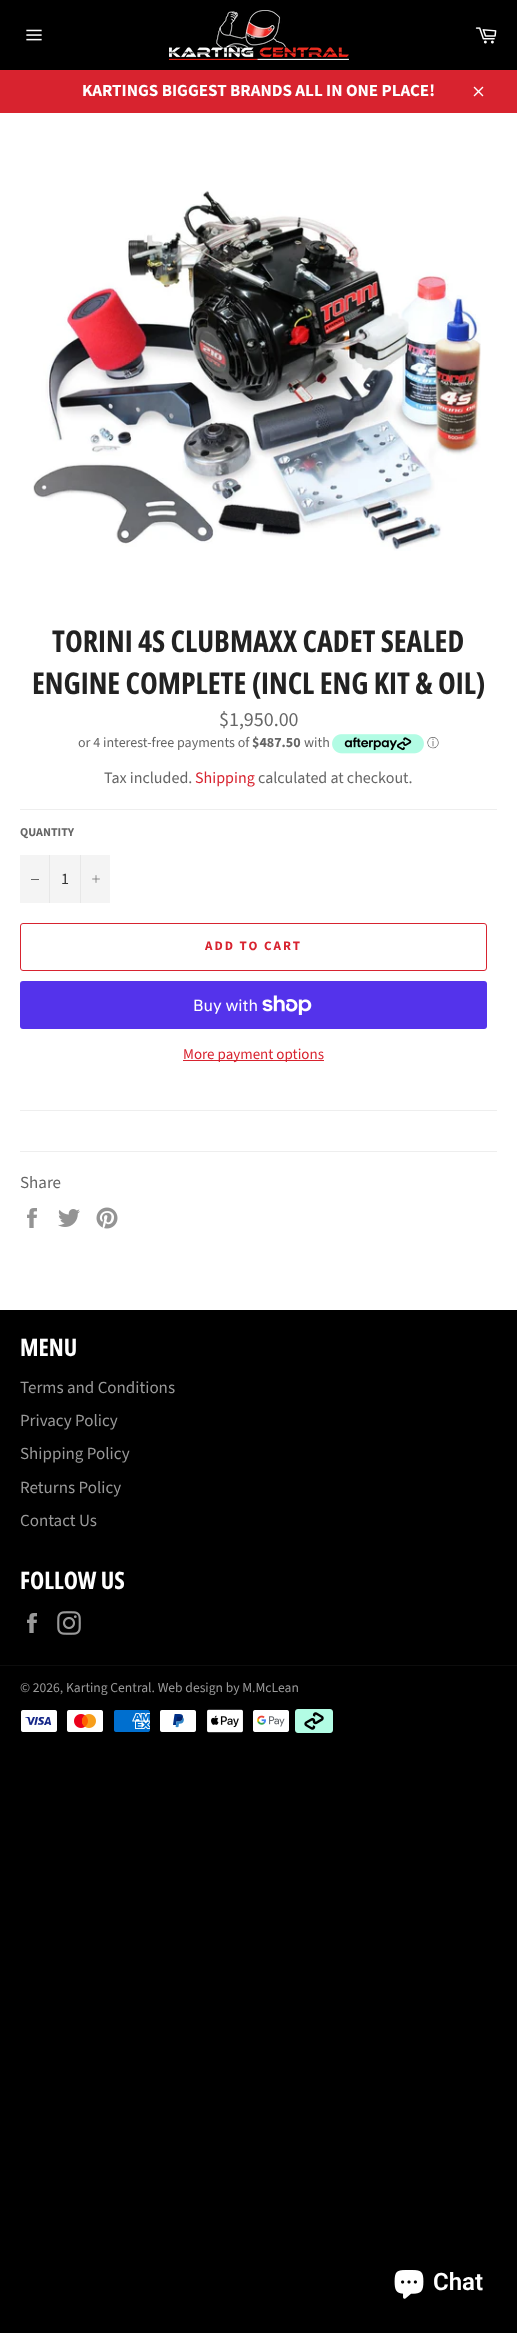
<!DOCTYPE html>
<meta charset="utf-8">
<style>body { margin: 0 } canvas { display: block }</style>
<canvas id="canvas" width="517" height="2333"></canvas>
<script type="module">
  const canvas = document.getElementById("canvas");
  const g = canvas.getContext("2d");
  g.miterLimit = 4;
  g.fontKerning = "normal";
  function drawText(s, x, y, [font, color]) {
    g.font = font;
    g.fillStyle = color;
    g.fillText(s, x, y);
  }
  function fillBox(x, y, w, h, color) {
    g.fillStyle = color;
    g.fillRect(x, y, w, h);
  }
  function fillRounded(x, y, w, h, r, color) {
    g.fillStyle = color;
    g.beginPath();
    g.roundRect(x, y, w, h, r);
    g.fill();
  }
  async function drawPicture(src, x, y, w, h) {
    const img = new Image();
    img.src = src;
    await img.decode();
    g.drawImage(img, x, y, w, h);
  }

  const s1 = ["bold 17px Source Sans Pro", "#FFFFFF"];
  const s2 = ["bold 30px Open Sans Condensed", "#222222"];
  const s3 = ["20px Source Sans Pro", "#666666"];
  const s4 = ["14px Source Sans Pro", "#666666"];
  const s5 = ["bold 14px Source Sans Pro", "#666666"];
  const s6 = ["500 12px WenQuanYi Zen Hei", "#666666"];
  const s7 = ["16px Source Sans Pro", "#666666"];
  const s8 = ["16px Source Sans Pro", "#D8232F"];
  const s9 = ["bold 12px Source Sans Pro", "#666666"];
  const s10 = ["16px Source Sans Pro", "#333333"];
  const s11 = ["bold 13px Source Sans Pro", "#D8232F"];
  const s12 = ["16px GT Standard", "#FFFFFF"];
  const s13 = ["15px Source Sans Pro", "#D8232F"];
  const s14 = ["17px Source Sans Pro", "#666666"];
  const s15 = ["bold 24px Open Sans Condensed", "#FFFFFF"];
  const s16 = ["17px Source Sans Pro", "#999999"];
  const s17 = ["13.6px Source Sans Pro", "#999999"];
  const s18 = ["600 24px Roboto", "#FFFFFF"];

  fillBox(0, 0, 517, 2333, "#000000");
  await drawPicture("pic1.png", 26, 29, 16, 12);
  await drawPicture("pic2.png", 169, 10, 180, 50);
  await drawPicture("pic3.png", 475, 27, 22, 17);
  fillBox(0, 70, 517, 43, "#D8232F");
  drawText("KARTINGS BIGGEST BRANDS ALL IN ONE PLACE!", 82, 96, s1);
  await drawPicture("pic4.png", 473, 86, 11, 11);
  fillBox(0, 113, 517, 1197, "#FFFFFF");
  await drawPicture("pic5.png", 33, 190, 448, 361);
  drawText("TORINI 4S CLUBMAXX CADET SEALED", 52, 652, s2);
  drawText("ENGINE COMPLETE (INCL ENG KIT & OIL)", 32, 694, s2);
  drawText("$1,950.00", 219, 726, s3);
  drawText("or 4 interest-free payments of", 78, 747, s4);
  drawText("$487.50", 252, 747, s5);
  drawText("with", 304, 747, s4);
  await drawPicture("pic6.png", 332, 734, 92, 20);
  drawText("ⓘ", 427, 747, s6);
  drawText("Tax included.", 104, 783, s7);
  drawText("Shipping", 195, 783, s8);
  drawText("calculated at checkout.", 258, 783, s7);
  fillBox(20, 809, 477, 1, "#EEEEEE");
  drawText("QUANTITY", 20, 836, s9);
  fillBox(20, 855, 90, 48, "#F4F4F4");
  fillBox(49, 855, 1, 48, "#E7E7E7");
  fillBox(31, 879, 8, 1, "#666666");
  drawText("1", 61, 884, s10);
  fillBox(80, 855, 1, 48, "#E7E7E7");
  await drawPicture("pic7.png", 92, 875, 8, 8);
  g.beginPath();
  g.roundRect(20.5, 923.5, 466, 47, 2.5);
  g.strokeStyle = "#D8232F";
  g.stroke();
  g.letterSpacing = "2px";
  drawText("ADD TO CART", 205, 950, s11);
  fillRounded(20, 981, 467, 48, 3, "#5433EB");
  g.letterSpacing = "0px";
  drawText("Buy with", 193, 1011, s12);
  await drawPicture("pic8.png", 262, 995, 50, 20);
  fillBox(183, 1060, 141, 1, "#D8232F");
  drawText("More payment options", 183, 1059, s13);
  fillBox(20, 1110, 477, 1, "#EEEEEE");
  fillBox(20, 1151, 477, 1, "#EEEEEE");
  drawText("Share", 20, 1188, s14);
  await drawPicture("pic9.png", 27, 1208, 10, 20);
  await drawPicture("pic10.png", 58, 1209, 22, 18);
  await drawPicture("pic11.png", 96, 1207, 22, 22);
  drawText("MENU", 20, 1356, s15);
  drawText("Terms and Conditions", 20, 1393, s16);
  drawText("Privacy Policy", 20, 1426, s16);
  drawText("Shipping Policy", 20, 1459, s16);
  drawText("Returns Policy", 20, 1493, s16);
  drawText("Contact Us", 20, 1526, s16);
  drawText("FOLLOW US", 20, 1589, s15);
  await drawPicture("pic12.png", 27, 1613, 10, 20);
  await drawPicture("pic13.png", 57, 1611, 24, 24);
  fillBox(0, 1665, 517, 1, "#0D0D0D");
  drawText("© 2026, Karting Central. Web design by M.McLean", 20, 1692, s17);
  await drawPicture("pic14.png", 21, 1710, 36, 22);
  await drawPicture("pic15.png", 67, 1710, 36, 22);
  await drawPicture("pic16.png", 114, 1710, 36, 22);
  await drawPicture("pic17.png", 160, 1710, 36, 22);
  await drawPicture("pic18.png", 207, 1709, 36, 24);
  await drawPicture("pic19.png", 253, 1710, 36, 22);
  await drawPicture("pic20.png", 295, 1709, 38, 24);
  await drawPicture("pic21.png", 394, 2270, 30, 29);
  drawText("Chat", 433, 2290, s18);
</script>
